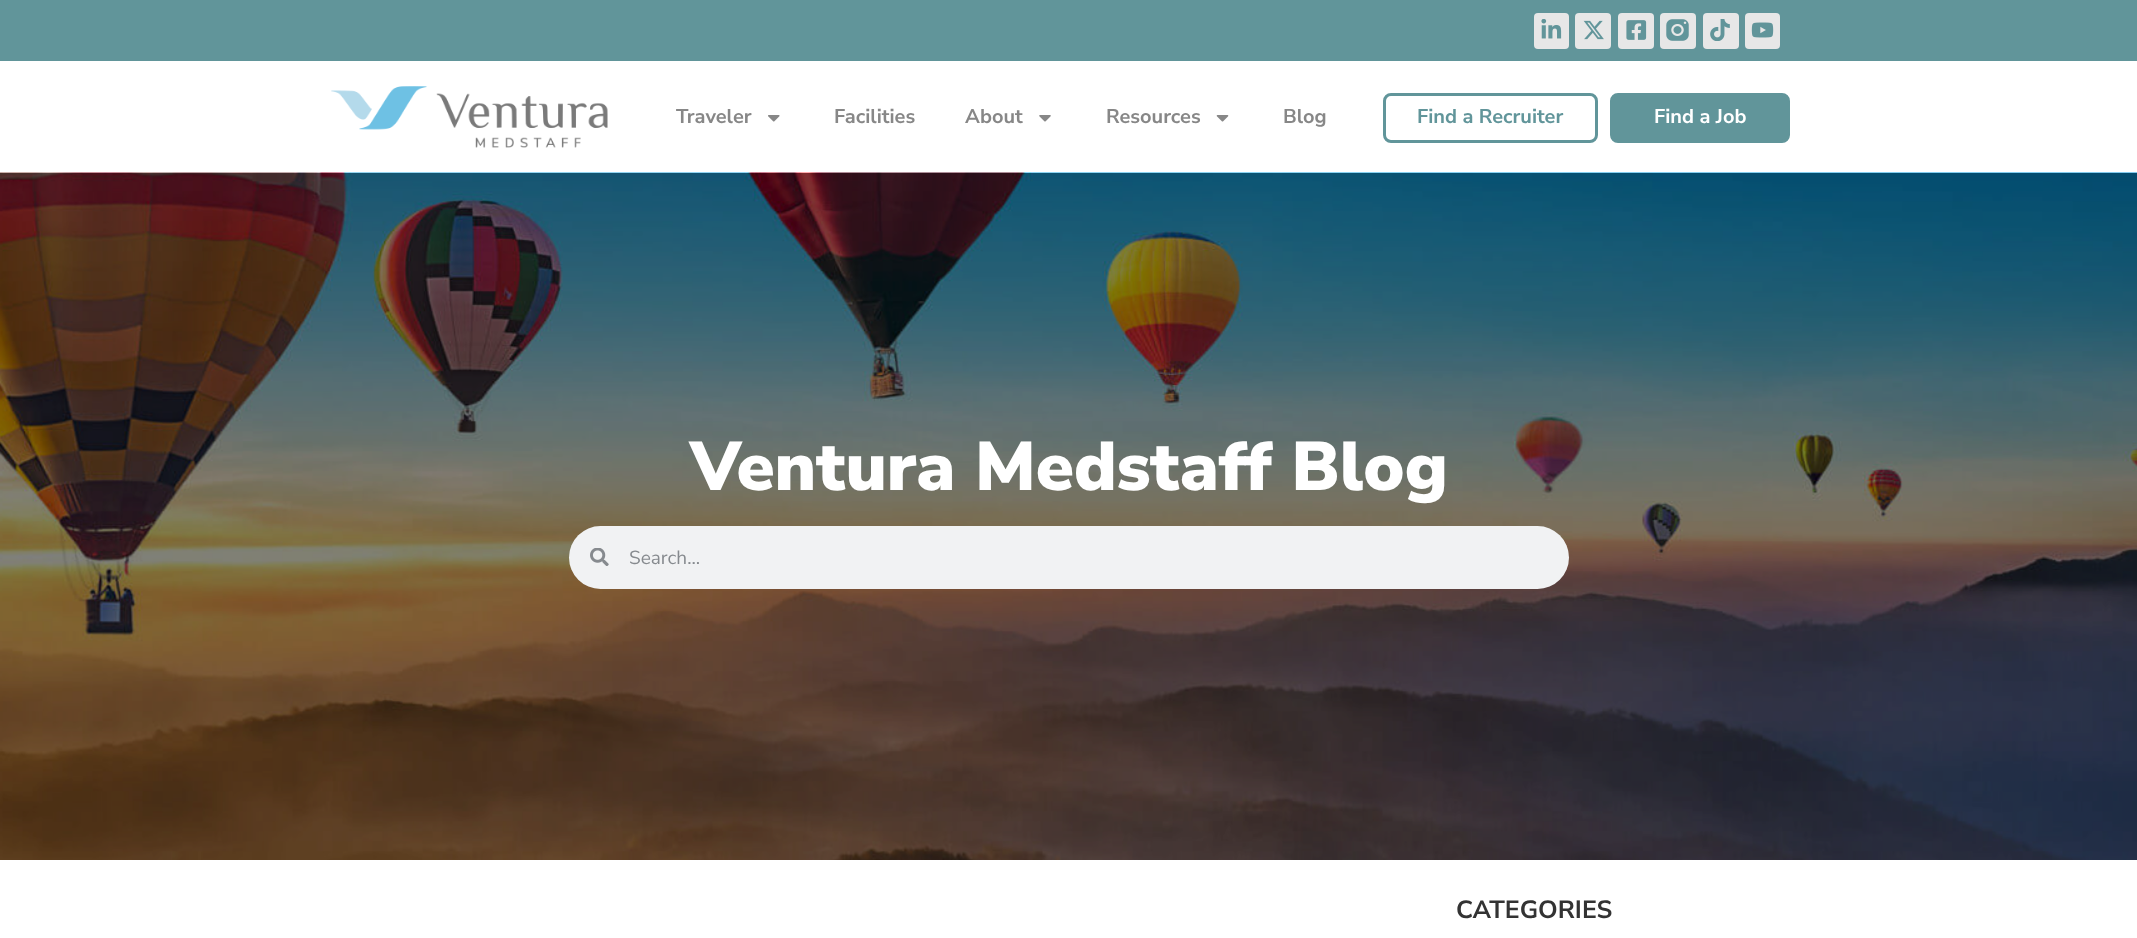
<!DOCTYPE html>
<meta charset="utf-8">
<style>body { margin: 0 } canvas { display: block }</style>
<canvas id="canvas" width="2137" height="938"></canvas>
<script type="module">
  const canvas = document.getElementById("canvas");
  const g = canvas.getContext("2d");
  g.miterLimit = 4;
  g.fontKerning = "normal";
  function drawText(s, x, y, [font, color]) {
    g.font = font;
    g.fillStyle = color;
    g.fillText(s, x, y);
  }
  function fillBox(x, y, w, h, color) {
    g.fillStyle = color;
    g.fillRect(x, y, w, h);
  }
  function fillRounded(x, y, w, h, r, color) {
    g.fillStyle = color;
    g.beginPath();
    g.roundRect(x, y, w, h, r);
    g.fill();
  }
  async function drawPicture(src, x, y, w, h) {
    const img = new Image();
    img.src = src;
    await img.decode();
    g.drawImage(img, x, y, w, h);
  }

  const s1 = ["bold 20px Nunito Sans", "#878787"];
  const s2 = ["bold 20px Nunito Sans", "#61959A"];
  const s3 = ["bold 20px Nunito Sans", "#FFFFFF"];
  const s4 = ["900 68.75px Nunito Sans", "#FFFFFF"];
  const s5 = ["19px Nunito Sans", "#868A8E"];
  const s6 = ["bold 25px Nunito Sans", "#333333"];

  fillBox(0, 0, 2137, 938, "#FFFFFF");
  fillBox(0, 0, 2137, 61, "#61959A");
  fillRounded(1534, 13, 35, 36, 4, "#E7E7E7");
  await drawPicture("pic1.png", 1541, 19, 21, 20);
  fillRounded(1575, 13, 36, 36, 4, "#E7E7E7");
  await drawPicture("pic2.png", 1583, 20, 21, 20);
  fillRounded(1618, 13, 36, 36, 4, "#E7E7E7");
  await drawPicture("pic3.png", 1626, 20, 21, 20);
  fillRounded(1660, 13, 36, 36, 4, "#E7E7E7");
  await drawPicture("pic4.png", 1666, 19, 23, 22);
  fillRounded(1703, 13, 36, 36, 4, "#E7E7E7");
  await drawPicture("pic5.png", 1710, 19, 20, 22);
  fillRounded(1745, 13, 35, 36, 4, "#E7E7E7");
  await drawPicture("pic6.png", 1751, 22, 23, 16);
  await drawPicture("pic7.png", 331, 86, 277, 62);
  drawText("Traveler", 676, 123, s1);
  await drawPicture("pic8.png", 768, 115, 12, 7);
  drawText("Facilities", 834, 123, s1);
  drawText("About", 965, 123, s1);
  await drawPicture("pic9.png", 1039, 115, 12, 7);
  drawText("Resources", 1106, 123, s1);
  await drawPicture("pic10.png", 1216, 115, 13, 7);
  drawText("Blog", 1283, 123, s1);
  g.beginPath();
  g.roundRect(1384.5, 94.5, 212, 47, 6.5);
  g.strokeStyle = "#61959A";
  g.lineWidth = 3;
  g.stroke();
  drawText("Find a Recruiter", 1417, 123, s2);
  g.beginPath();
  g.roundRect(1611.5, 94.5, 177, 47, 6.5);
  g.fill();
  g.stroke();
  drawText("Find a Job", 1654, 123, s3);
  await drawPicture("pic11.png", 0, 172, 2137, 688);
  drawText("Ventura Medstaff Blog", 690, 490, s4);
  fillRounded(569, 526, 1000, 63, 31.5, "#F1F2F3");
  await drawPicture("pic12.png", 590, 548, 19, 18);
  drawText("Search...", 629, 564, s5);
  drawText("CATEGORIES", 1456, 918, s6);
</script>
